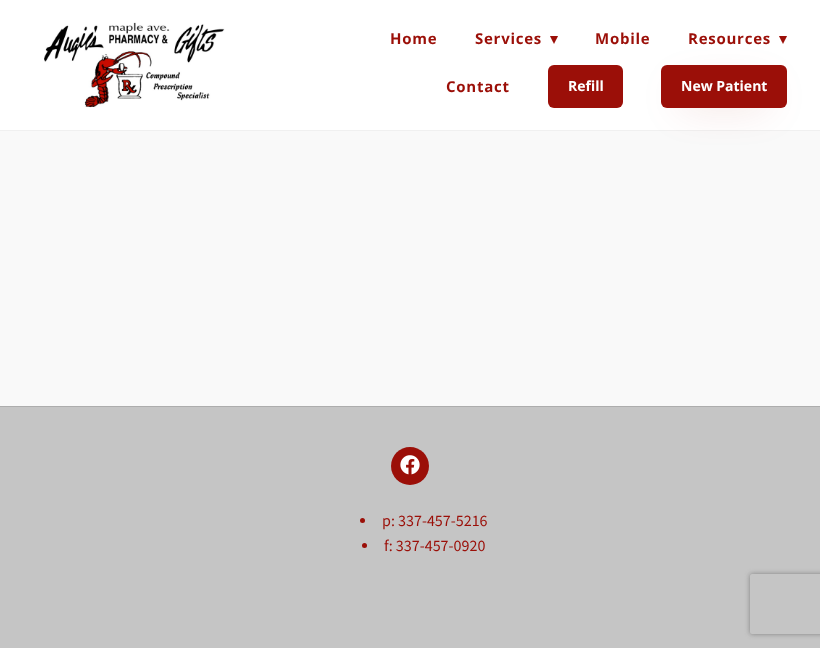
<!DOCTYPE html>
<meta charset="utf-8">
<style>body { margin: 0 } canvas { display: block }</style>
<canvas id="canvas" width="820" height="648"></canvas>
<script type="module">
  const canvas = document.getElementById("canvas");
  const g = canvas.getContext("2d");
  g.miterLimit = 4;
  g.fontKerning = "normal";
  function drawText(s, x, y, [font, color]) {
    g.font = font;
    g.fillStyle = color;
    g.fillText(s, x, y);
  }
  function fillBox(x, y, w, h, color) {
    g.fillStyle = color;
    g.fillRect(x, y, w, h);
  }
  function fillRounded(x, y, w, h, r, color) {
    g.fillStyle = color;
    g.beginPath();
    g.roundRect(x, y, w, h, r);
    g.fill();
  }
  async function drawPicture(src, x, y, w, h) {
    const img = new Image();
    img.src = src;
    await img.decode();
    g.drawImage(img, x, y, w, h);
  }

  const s1 = ["bold 15px Open Sans", "#9B0F08"];
  const s2 = ["bold 15px DejaVu Sans", "#9B0F08"];
  const s3 = ["bold 14px Open Sans", "#FFFFFF"];
  const s4 = ["16px Source Sans Pro", "#9B0F08"];

  fillBox(0, 0, 820, 648, "#F9F9F9");
  fillBox(0, 0, 820, 130, "#FFFFFF");
  fillBox(0, 130, 820, 1, "#F0F0F0");
  await drawPicture("pic1.png", 44, 22, 181, 86);
  g.letterSpacing = "0.75px";
  drawText("Home", 390, 44, s1);
  drawText("Services", 475, 44, s1);
  drawText("▾", 550, 44, s2);
  drawText("Mobile", 595, 44, s1);
  drawText("Resources", 688, 44, s1);
  drawText("▾", 779, 44, s2);
  drawText("Contact", 446, 92, s1);
  fillRounded(548, 65, 75, 43, 6, "#9B0F08");
  g.letterSpacing = "0px";
  drawText("Refill", 568, 91, s3);
  g.fillStyle = "#9B0F08";
  g.filter = "blur(20px)";
  g.beginPath();
  g.rect(681, 95, 86, 3);
  g.fill();
  g.filter = "none";
  fillRounded(661, 65, 126, 43, 6, "#9B0F08");
  drawText("New Patient", 681, 91, s3);
  fillBox(0, 407, 820, 241, "#C5C5C5");
  fillBox(0, 406, 820, 1, "#ADADAD");
  g.fillStyle = "#9B0F08";
  g.beginPath();
  g.arc(410, 466, 19, 0, Math.PI * 2);
  g.fill();
  await drawPicture("pic2.png", 400, 455, 20, 20);
  g.beginPath();
  g.arc(362.5, 520.5, 2.5, 0, Math.PI * 2);
  g.fill();
  drawText("p: 337-457-5216", 382, 526, s4);
  g.beginPath();
  g.arc(364.5, 545.5, 2.5, 0, Math.PI * 2);
  g.fill();
  drawText("f: 337-457-0920", 384, 551, s4);
  g.save();
  g.beginPath();
  g.moveTo(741, 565);
  g.lineTo(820, 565);
  g.lineTo(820, 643);
  g.lineTo(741, 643);
  g.closePath();
  g.moveTo(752, 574);
  g.lineTo(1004, 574);
  g.bezierCurveTo(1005, 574, 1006, 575, 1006, 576);
  g.lineTo(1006, 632);
  g.bezierCurveTo(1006, 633, 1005, 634, 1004, 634);
  g.lineTo(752, 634);
  g.bezierCurveTo(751, 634, 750, 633, 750, 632);
  g.lineTo(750, 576);
  g.bezierCurveTo(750, 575, 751, 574, 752, 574);
  g.closePath();
  g.clip("evenodd");
  g.fillStyle = "#808080";
  g.filter = "blur(2.5px)";
  g.beginPath();
  g.roundRect(750, 574, 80, 60, 2);
  g.fill();
  g.filter = "none";
  g.restore();
</script>
